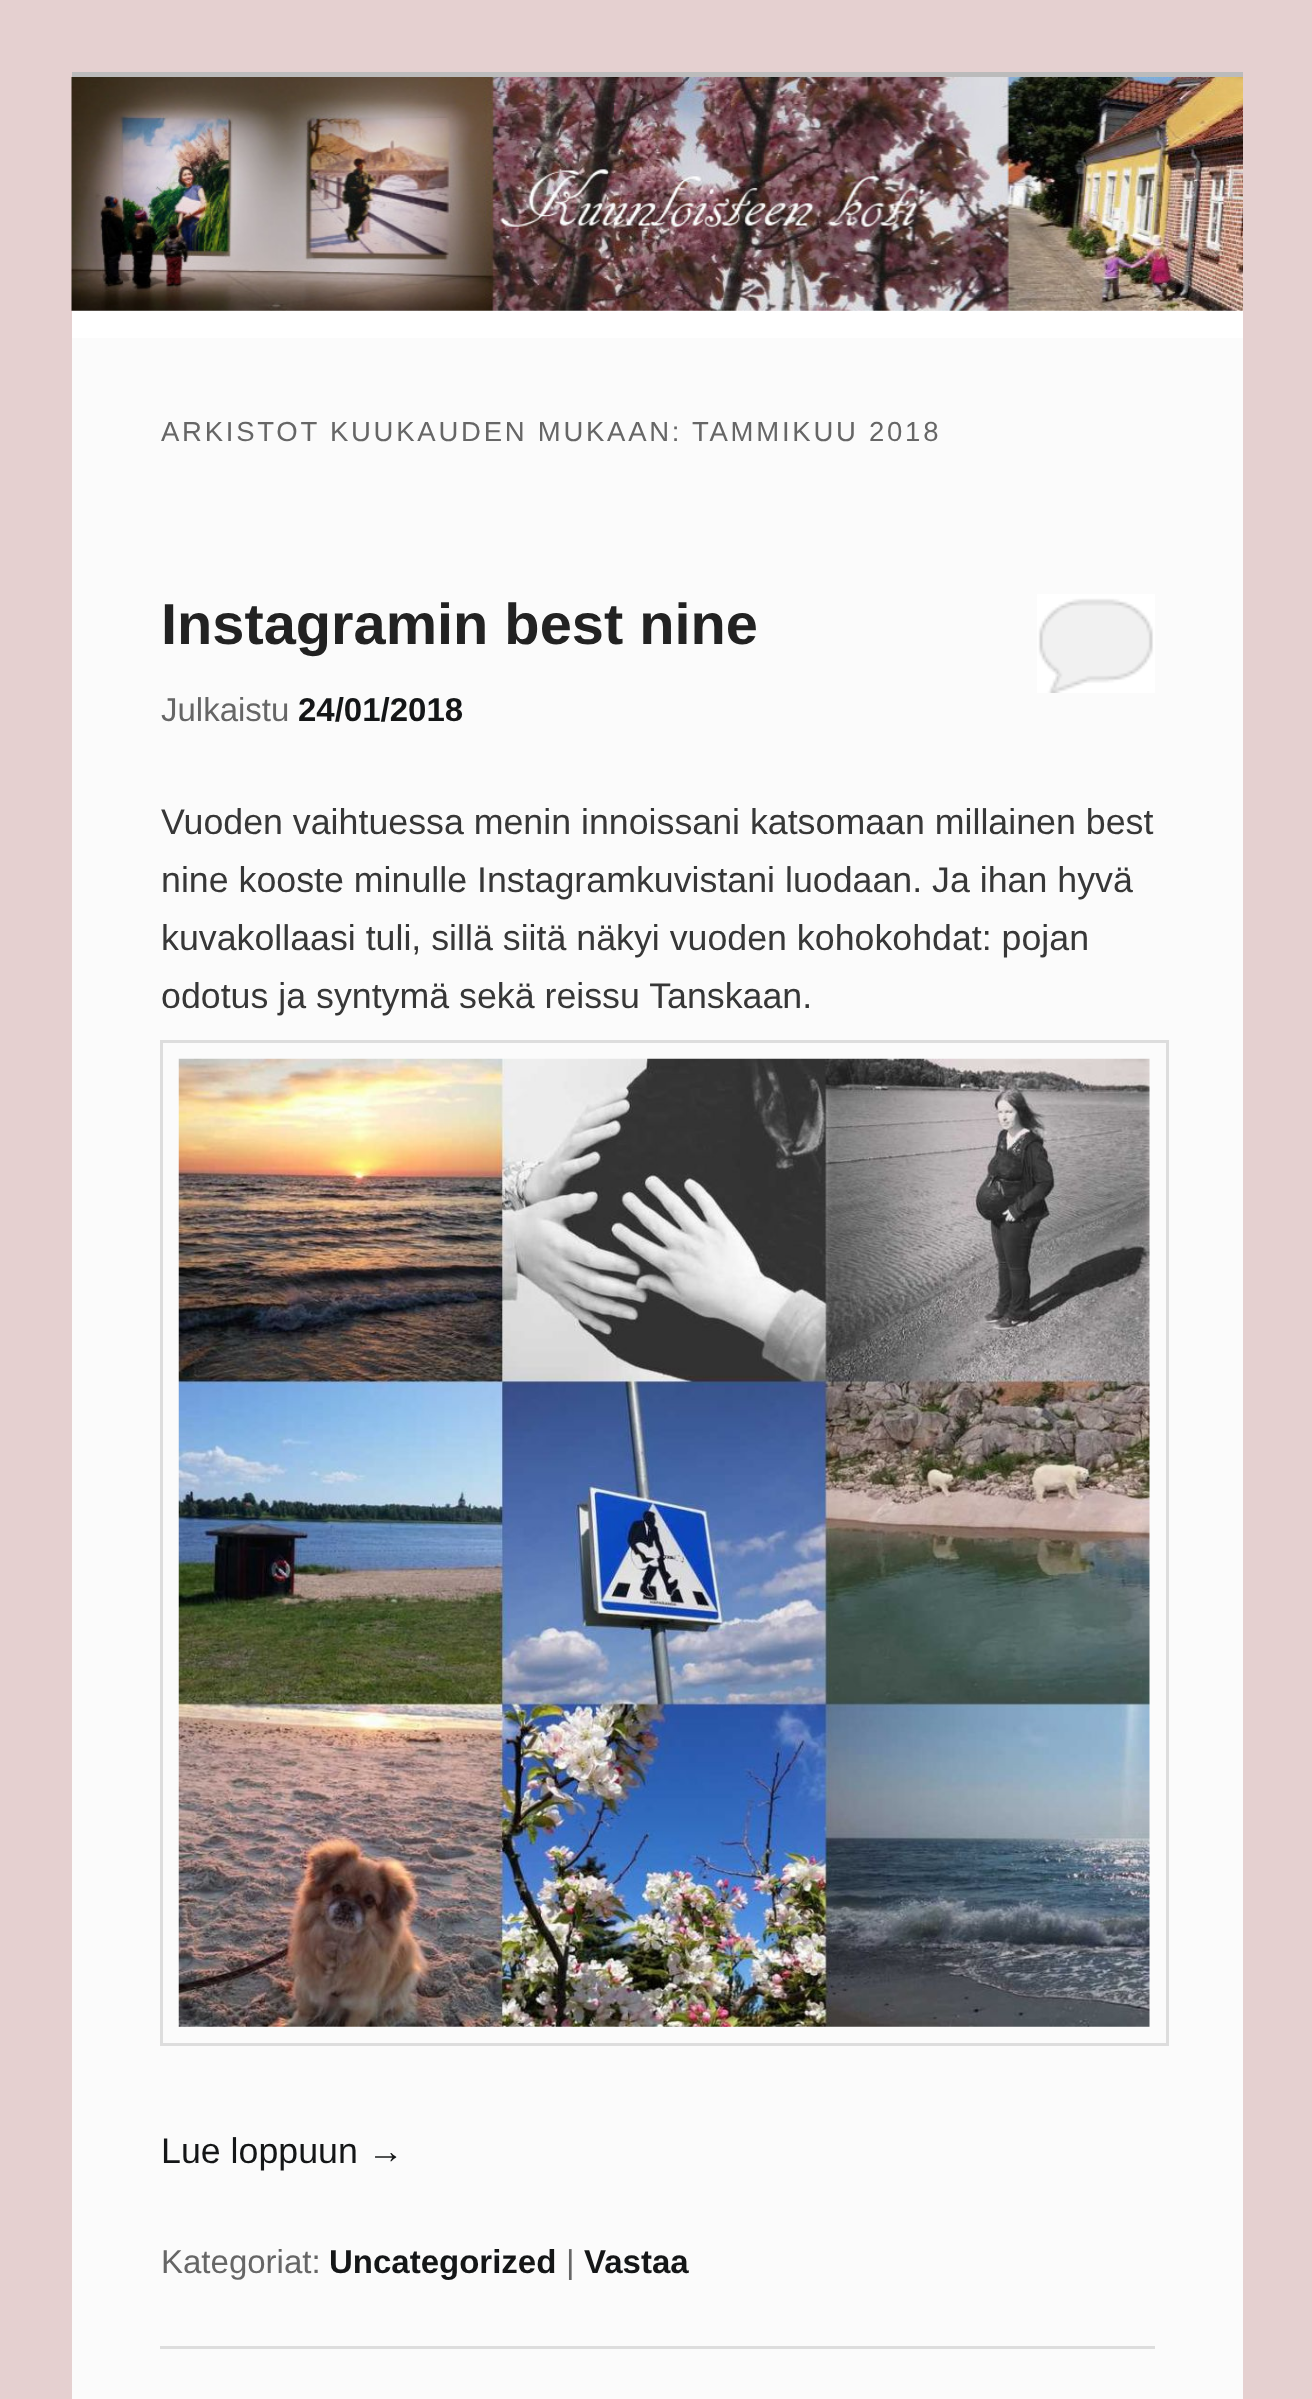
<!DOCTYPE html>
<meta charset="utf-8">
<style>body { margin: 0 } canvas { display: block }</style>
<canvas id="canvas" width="1312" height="2399"></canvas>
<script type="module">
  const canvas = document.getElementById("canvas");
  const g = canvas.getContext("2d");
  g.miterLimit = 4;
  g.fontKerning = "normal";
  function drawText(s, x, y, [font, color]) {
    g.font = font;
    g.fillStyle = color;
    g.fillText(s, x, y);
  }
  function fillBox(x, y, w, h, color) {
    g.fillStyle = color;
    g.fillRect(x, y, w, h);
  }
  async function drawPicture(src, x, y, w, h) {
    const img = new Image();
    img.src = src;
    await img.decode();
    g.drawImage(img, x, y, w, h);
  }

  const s1 = ["27.5px Liberation Sans", "#666666"];
  const s2 = ["bold 57.75px Liberation Sans", "#222222"];
  const s3 = ["33px Liberation Sans", "#666666"];
  const s4 = ["bold 33px Liberation Sans", "#141617"];
  const s5 = ["35.75px Liberation Sans", "#373737"];
  const s6 = ["35.75px Liberation Sans", "#141617"];

  fillBox(0, 0, 1312, 2399, "#E5D0D0");
  fillBox(72, 338, 1171, 2061, "#FBFBFB");
  fillBox(72, 310, 1171, 28, "#FFFFFF");
  fillBox(72, 72, 1171, 5, "#BBBBBB");
  await drawPicture("pic1.png", 71, 77, 1172, 234);
  g.letterSpacing = "2.75px";
  drawText("ARKISTOT KUUKAUDEN MUKAAN:", 161, 441, s1);
  drawText("TAMMIKUU 2018", 692, 441, s1);
  fillBox(160, 2346, 995, 3, "#DDDDDD");
  g.letterSpacing = "0px";
  drawText("Instagramin best nine", 161, 644, s2);
  fillBox(1038, 598, 116, 95, "#F1F1F1");
  await drawPicture("pic2.png", 1037, 594, 118, 99);
  drawText("Julkaistu", 161, 721, s3);
  drawText("24/01/2018", 298, 721, s4);
  drawText("Vuoden vaihtuessa menin innoissani katsomaan millainen best", 161, 834, s5);
  drawText("nine kooste minulle Instagramkuvistani luodaan. Ja ihan hyvä", 161, 892, s5);
  drawText("kuvakollaasi tuli, sillä siitä näkyi vuoden kohokohdat: pojan", 161, 950, s5);
  drawText("odotus ja syntymä sekä reissu Tanskaan.", 161, 1008, s5);
  g.strokeStyle = "#DDDDDD";
  g.lineWidth = 3;
  g.strokeRect(161.5, 1041.5, 1006, 1003);
  await drawPicture("pic3.png", 178, 1058, 972, 969);
  drawText("Lue loppuun →", 161, 2163, s6);
  drawText("Kategoriat:", 161, 2273, s3);
  drawText("Uncategorized", 329, 2273, s4);
  drawText("|", 566, 2273, s3);
  drawText("Vastaa", 584, 2273, s4);
</script>
